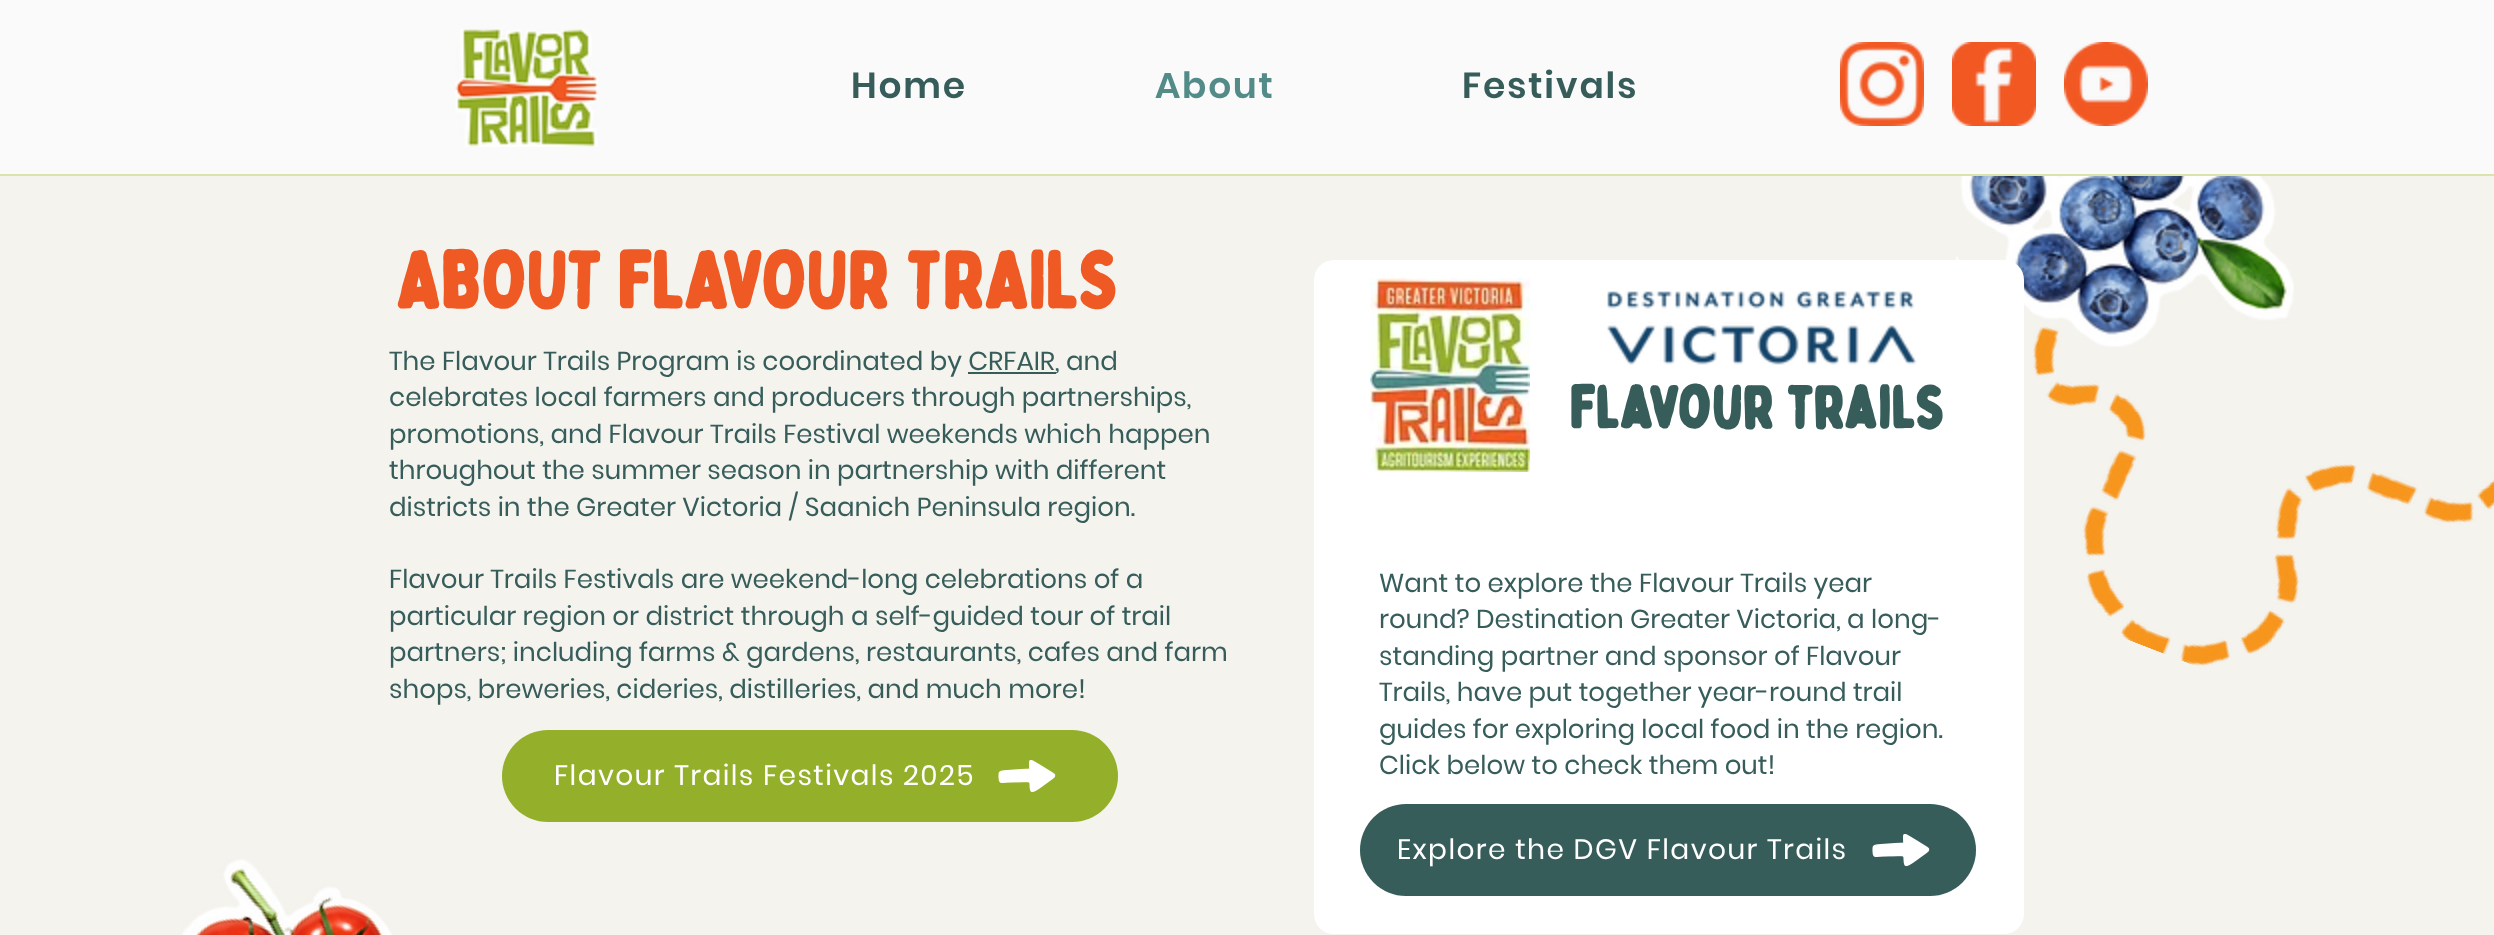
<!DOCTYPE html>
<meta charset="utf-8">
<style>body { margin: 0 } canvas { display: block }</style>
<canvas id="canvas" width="2494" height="935"></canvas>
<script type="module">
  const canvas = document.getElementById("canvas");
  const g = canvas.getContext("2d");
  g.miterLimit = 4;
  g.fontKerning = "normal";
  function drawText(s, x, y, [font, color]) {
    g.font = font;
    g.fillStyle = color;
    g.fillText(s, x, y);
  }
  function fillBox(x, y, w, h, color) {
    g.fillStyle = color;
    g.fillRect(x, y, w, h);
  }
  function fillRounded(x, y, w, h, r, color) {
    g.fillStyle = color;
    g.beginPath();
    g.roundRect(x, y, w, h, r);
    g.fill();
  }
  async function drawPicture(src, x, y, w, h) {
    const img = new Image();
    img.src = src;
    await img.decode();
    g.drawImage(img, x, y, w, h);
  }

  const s1 = ["600 36px Poppins", "#375D5B"];
  const s2 = ["600 36px Poppins", "#538B89"];
  const s3 = ["bold 80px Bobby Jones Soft", "#EE5924"];
  const s4 = ["26px Poppins", "#375D5B"];
  const s5 = ["bold 60px Bobby Jones Soft", "#375D5B"];
  const s6 = ["28px Poppins", "#FFFFFF"];

  fillBox(0, 0, 2494, 935, "#D9E4AA");
  fillBox(0, 0, 2494, 174, "#FAFAFA");
  await drawPicture("pic1.png", 455, 29, 144, 118);
  g.letterSpacing = "1.75px";
  drawText("Home", 851, 98, s1);
  drawText("About", 1155, 98, s2);
  drawText("Festivals", 1462, 98, s1);
  await drawPicture("pic2.png", 1840, 42, 84, 84);
  await drawPicture("pic3.png", 1952, 42, 84, 84);
  await drawPicture("pic4.png", 2064, 42, 84, 84);
  fillBox(0, 176, 2494, 759, "#F4F3EE");
  g.letterSpacing = "0px";
  drawText("ABOUT FLAVOUR TRAILS", 396, 308, s3);
  await drawPicture("pic5.png", 1956, 176, 338, 171);
  drawText("The Flavour Trails Program is coordinated by CRFAIR", 389, 370, s4);
  fillBox(968, 372, 88, 2, "#375D5B");
  drawText(", and", 1055, 370, s4);
  drawText("celebrates local farmers and producers through partnerships,", 389, 406, s4);
  drawText("promotions, and Flavour Trails Festival weekends which happen", 389, 443, s4);
  drawText("throughout the summer season in partnership with different", 389, 479, s4);
  drawText("districts in the Greater Victoria / Saanich Peninsula region.", 389, 516, s4);
  drawText("Flavour Trails Festivals are weekend-long celebrations of a", 389, 588, s4);
  drawText("particular region or district through a self-guided tour of trail", 389, 625, s4);
  drawText("partners; including farms & gardens, restaurants, cafes and farm", 389, 661, s4);
  drawText("shops, breweries, cideries, distilleries, and much more!", 389, 698, s4);
  fillRounded(1314, 260, 710, 674, 20, "#FFFFFF");
  await drawPicture("pic6.png", 1370, 278, 160, 194);
  await drawPicture("pic7.png", 1607, 291, 310, 74);
  drawText("Flavour trails", 1569, 428, s5);
  drawText("Want to explore the Flavour Trails year", 1379, 592, s4);
  drawText("round? Destination Greater Victoria, a long-", 1379, 628, s4);
  drawText("standing partner and sponsor of Flavour", 1379, 665, s4);
  drawText("Trails, have put together year-round trail", 1379, 701, s4);
  drawText("guides for exploring local food in the region.", 1379, 738, s4);
  drawText("Click below to check them out!", 1379, 774, s4);
  fillRounded(1360, 804, 616, 92, 46, "#375D5B");
  g.letterSpacing = "1.4px";
  drawText("Explore the DGV Flavour Trails", 1397, 859, s6);
  await drawPicture("pic8.png", 1872, 834, 58, 33);
  await drawPicture("pic9.png", 2033, 326, 457, 340);
  await drawPicture("pic10.png", 2477, 479, 17, 31);
  fillRounded(502, 730, 616, 92, 46, "#94AF2A");
  drawText("Flavour Trails Festivals 2025", 554, 785, s6);
  await drawPicture("pic11.png", 998, 760, 58, 33);
  await drawPicture("pic12.png", 181, 859, 211, 76);
</script>
